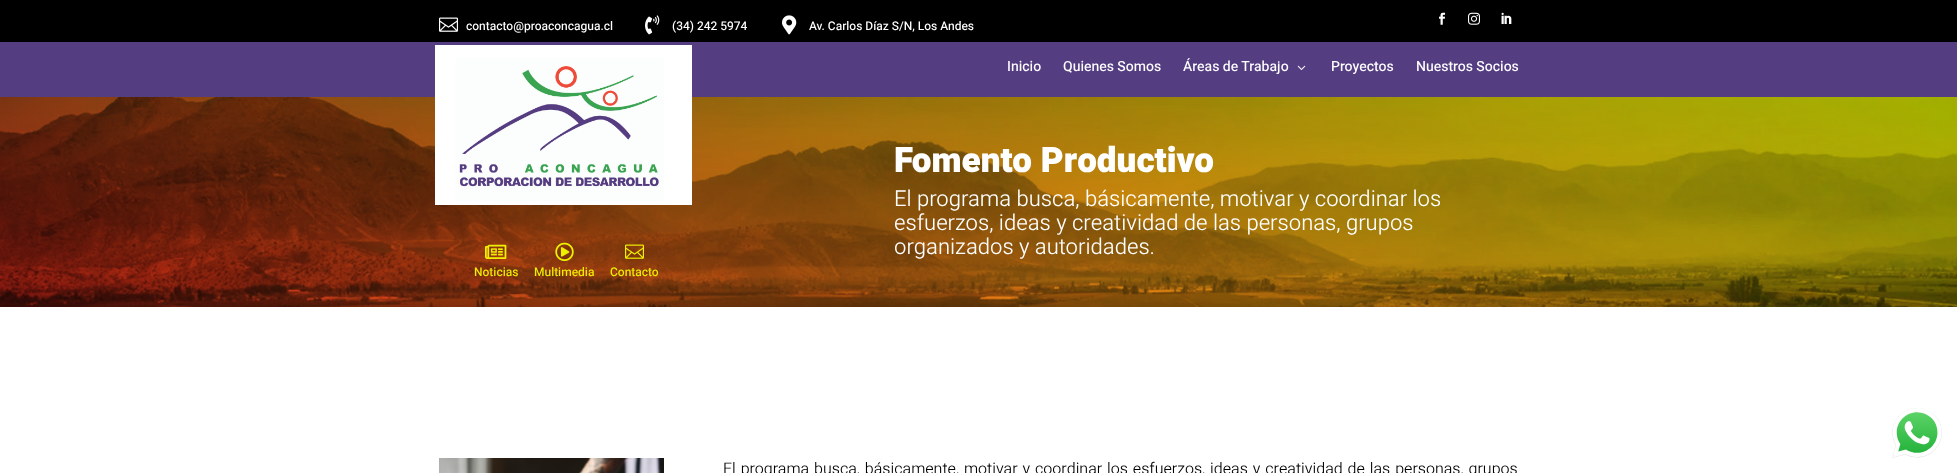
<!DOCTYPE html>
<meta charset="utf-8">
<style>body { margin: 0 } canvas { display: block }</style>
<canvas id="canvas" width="1957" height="473"></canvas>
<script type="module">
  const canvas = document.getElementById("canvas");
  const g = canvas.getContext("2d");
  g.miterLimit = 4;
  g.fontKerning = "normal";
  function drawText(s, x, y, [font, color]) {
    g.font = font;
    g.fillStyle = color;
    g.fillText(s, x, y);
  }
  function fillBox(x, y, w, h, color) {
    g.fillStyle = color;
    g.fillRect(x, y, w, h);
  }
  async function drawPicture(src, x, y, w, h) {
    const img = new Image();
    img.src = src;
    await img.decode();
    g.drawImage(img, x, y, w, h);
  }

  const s1 = ["500 12px Heebo", "#FFFFFF"];
  const s2 = ["500 14px Heebo", "#FFFFFF"];
  const s3 = ["900 35px Heebo", "#FFFFFF"];
  const s4 = ["300 22px Heebo", "#FFFFFF"];
  const s5 = ["500 12px Heebo", "#EDF000"];
  const s6 = ["300 16px Heebo", "#000000"];

  fillBox(0, 0, 1957, 473, "#FFFFFF");
  fillBox(0, 0, 1957, 42, "#000000");
  await drawPicture("pic1.png", 1439, 12, 6, 13);
  await drawPicture("pic2.png", 1468, 12, 12, 13);
  await drawPicture("pic3.png", 1501, 12, 11, 12);
  await drawPicture("pic4.png", 439, 17, 19, 15);
  drawText("contacto@proaconcagua.cl", 466, 30, s1);
  await drawPicture("pic5.png", 645, 15, 15, 20);
  drawText("(34) 242 5974", 672, 30, s1);
  await drawPicture("pic6.png", 782, 15, 15, 20);
  drawText("Av. Carlos Díaz S/N, Los Andes", 809, 30, s1);
  fillBox(0, 42, 1957, 55, "#553D82");
  drawText("Inicio", 1007, 71, s2);
  drawText("Quienes Somos", 1063, 71, s2);
  drawText("Áreas de Trabajo", 1183, 71, s2);
  await drawPicture("pic7.png", 1297, 65, 9, 5);
  drawText("Proyectos", 1331, 71, s2);
  drawText("Nuestros Socios", 1416, 71, s2);
  await drawPicture("pic8.png", 0, 97, 1957, 210);
  await drawPicture("pic9.png", 435, 45, 257, 160);
  drawText("Fomento Productivo", 894, 172, s3);
  drawText("El programa busca, básicamente, motivar y coordinar los", 894, 206, s4);
  drawText("esfuerzos, ideas y creatividad de las personas, grupos", 894, 230, s4);
  drawText("organizados y autoridades.", 894, 254, s4);
  await drawPicture("pic10.png", 485, 244, 22, 15);
  drawText("Noticias", 474, 276, s5);
  await drawPicture("pic11.png", 555, 242, 19, 20);
  drawText("Multimedia", 534, 276, s5);
  await drawPicture("pic12.png", 625, 244, 19, 15);
  drawText("Contacto", 610, 276, s5);
  await drawPicture("pic13.png", 439, 458, 225, 15);
  g.wordSpacing = "1px";
  drawText("El programa busca, básicamente, motivar y coordinar los esfuerzos, ideas y creatividad de las personas, grupos", 723, 474, s6);
  await drawPicture("pic14.png", 1892, 408, 50, 50);
</script>
